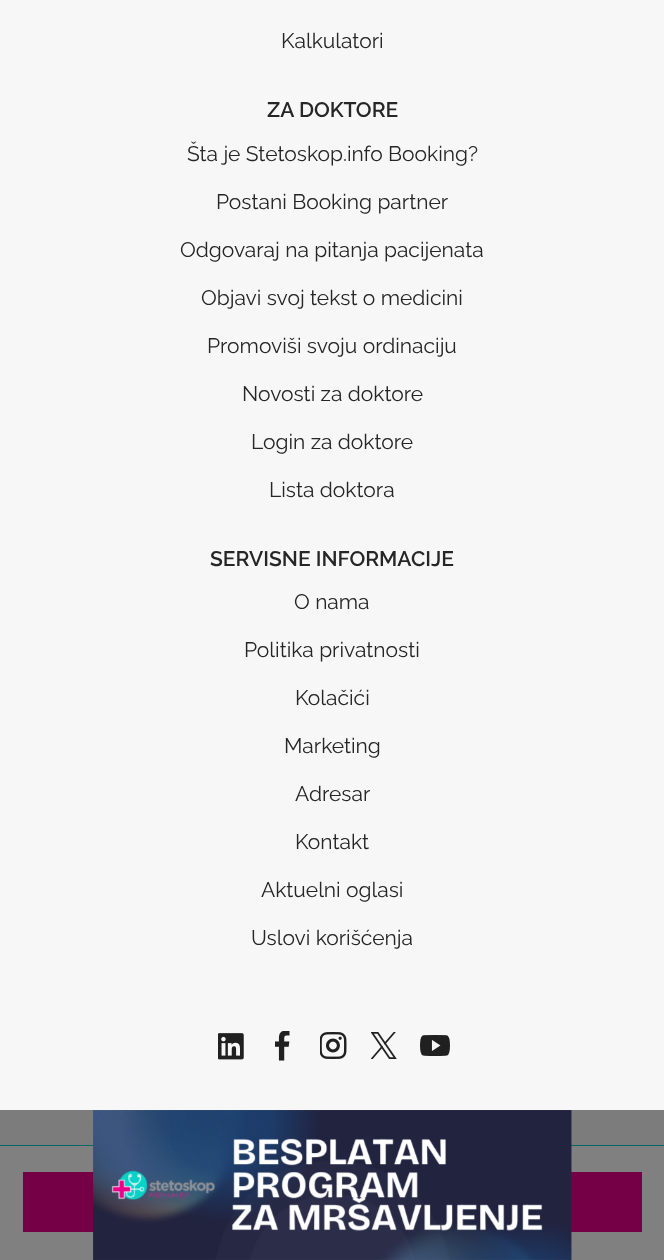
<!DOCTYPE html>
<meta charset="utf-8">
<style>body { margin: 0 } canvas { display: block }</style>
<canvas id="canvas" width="664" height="1260"></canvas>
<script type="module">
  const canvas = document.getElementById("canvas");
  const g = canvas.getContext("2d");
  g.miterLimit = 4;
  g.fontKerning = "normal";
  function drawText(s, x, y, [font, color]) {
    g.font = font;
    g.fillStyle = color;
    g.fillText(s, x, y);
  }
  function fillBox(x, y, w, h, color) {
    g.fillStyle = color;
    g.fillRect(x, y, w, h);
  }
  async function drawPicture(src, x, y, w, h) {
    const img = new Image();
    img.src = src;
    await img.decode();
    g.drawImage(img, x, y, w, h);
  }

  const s1 = ["21px Raleway", "#262626"];
  const s2 = ["600 21px Raleway", "#262626"];

  fillBox(0, 0, 664, 1260, "#F7F7F7");
  fillBox(0, 1110, 664, 35, "#7C7C7C");
  drawText("Kalkulatori", 281, 48, s1);
  drawText("ZA DOKTORE", 267, 117, s2);
  drawText("Šta je Stetoskop.info Booking?", 187, 161, s1);
  drawText("Postani Booking partner", 216, 209, s1);
  drawText("Odgovaraj na pitanja pacijenata", 180, 257, s1);
  drawText("Objavi svoj tekst o medicini", 201, 305, s1);
  drawText("Promoviši svoju ordinaciju", 207, 353, s1);
  drawText("Novosti za doktore", 242, 401, s1);
  drawText("Login za doktore", 251, 449, s1);
  drawText("Lista doktora", 269, 497, s1);
  drawText("SERVISNE INFORMACIJE", 210, 566, s2);
  drawText("O nama", 294, 609, s1);
  drawText("Politika privatnosti", 244, 657, s1);
  drawText("Kolačići", 295, 705, s1);
  drawText("Marketing", 284, 753, s1);
  drawText("Adresar", 295, 801, s1);
  drawText("Kontakt", 295, 849, s1);
  drawText("Aktuelni oglasi", 261, 897, s1);
  drawText("Uslovi korišćenja", 251, 945, s1);
  await drawPicture("pic1.png", 218, 1033, 26, 27);
  await drawPicture("pic2.png", 275, 1031, 15, 30);
  await drawPicture("pic3.png", 320, 1032, 27, 27);
  await drawPicture("pic4.png", 371, 1032, 26, 27);
  await drawPicture("pic5.png", 420, 1035, 30, 21);
  fillBox(0, 1145, 664, 1, "#056A65");
  fillBox(0, 1146, 664, 114, "#808080");
  fillBox(23, 1172, 619, 60, "#760046");
  await drawPicture("pic6.png", 93, 1110, 479, 150);
</script>
